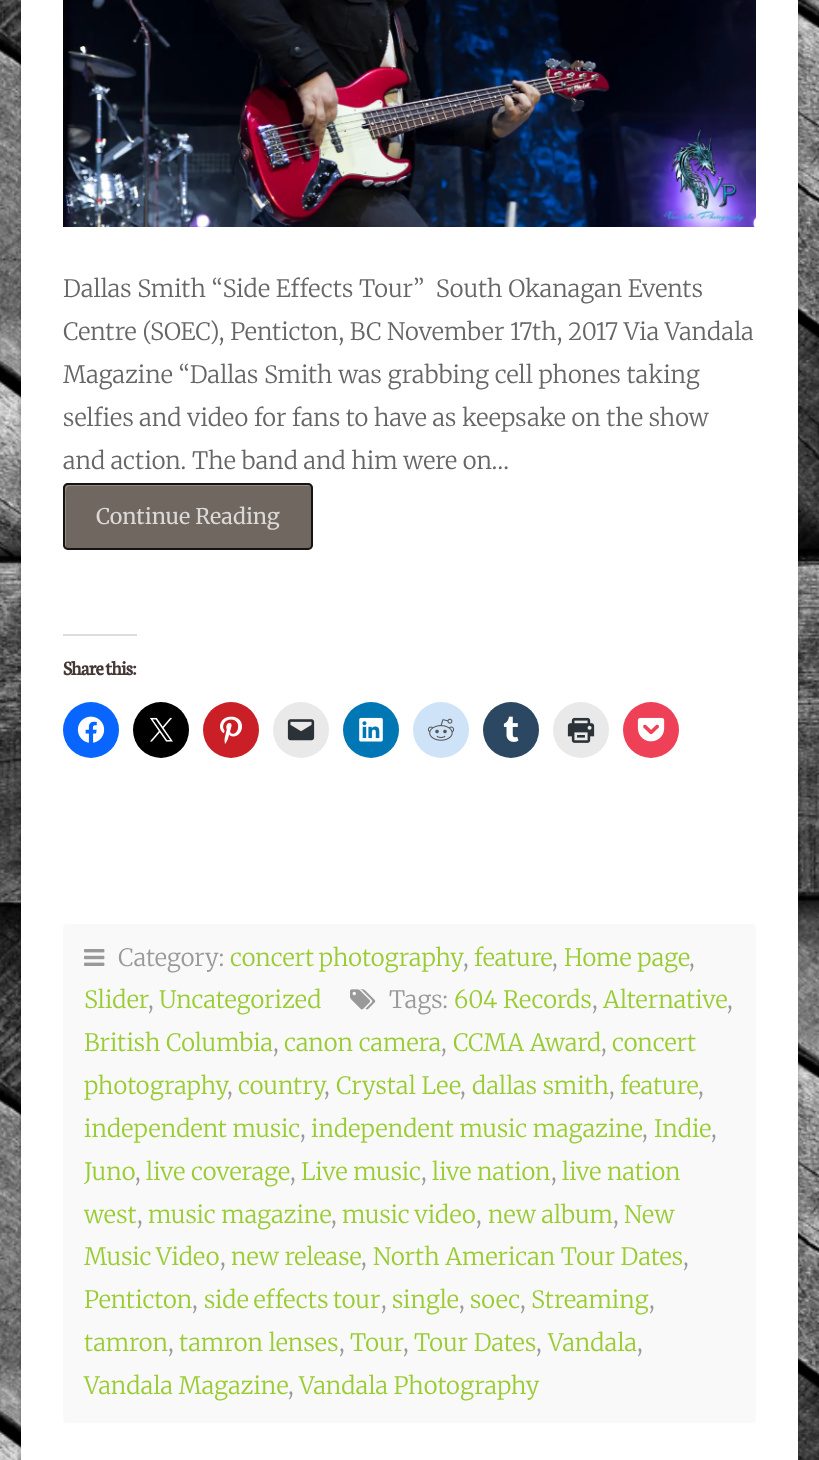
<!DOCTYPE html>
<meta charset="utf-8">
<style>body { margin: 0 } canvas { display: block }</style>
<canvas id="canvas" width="819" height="1460"></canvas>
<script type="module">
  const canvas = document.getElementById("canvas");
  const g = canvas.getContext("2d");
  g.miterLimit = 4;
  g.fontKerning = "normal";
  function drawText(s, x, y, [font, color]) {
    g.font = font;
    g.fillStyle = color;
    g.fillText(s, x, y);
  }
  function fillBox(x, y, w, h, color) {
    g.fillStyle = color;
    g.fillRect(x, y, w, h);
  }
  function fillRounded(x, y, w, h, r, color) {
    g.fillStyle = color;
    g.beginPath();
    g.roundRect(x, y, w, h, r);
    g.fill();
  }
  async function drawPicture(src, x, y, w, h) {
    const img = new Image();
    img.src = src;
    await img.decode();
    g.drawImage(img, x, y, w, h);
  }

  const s1 = ["300 23.8px Merriweather", "#666666"];
  const s2 = ["21.5px Merriweather", "#DBD9D7"];
  const s3 = ["bold 21px Neuton", "#453736"];
  const s4 = ["300 23.8px Merriweather", "#999999"];
  const s5 = ["300 23.8px Merriweather", "#99CC33"];

  fillBox(0, 0, 819, 1460, "#FFFFFF");
  await drawPicture("pic1.png", 0, 0, 819, 1460);
  g.fillStyle = "rgba(0, 0, 0, 0.24)";
  g.filter = "blur(3.5px)";
  g.beginPath();
  g.roundRect(21, -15, 777, 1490, 4);
  g.fill();
  g.filter = "none";
  fillBox(21, 0, 777, 1460, "#FFFFFF");
  await drawPicture("pic2.png", 63, 0, 693, 227);
  drawText("Dallas Smith “Side Effects Tour”  South Okanagan Events", 63, 297, s1);
  drawText("Centre (SOEC), Penticton, BC November 17th, 2017 Via Vandala", 63, 340, s1);
  drawText("Magazine “Dallas Smith was grabbing cell phones taking", 63, 383, s1);
  drawText("selfies and video for fans to have as keepsake on the show", 63, 426, s1);
  drawText("and action. The band and him were on…", 63, 469, s1);
  fillRounded(63, 483, 250, 67, 5, "#706760");
  g.fillStyle = "#928B86";
  g.beginPath();
  g.moveTo(70, 486);
  g.lineTo(311, 486);
  g.bezierCurveTo(310, 485, 309, 485, 308, 485);
  g.lineTo(69, 485);
  g.bezierCurveTo(67, 485, 65, 487, 65, 489);
  g.lineTo(65, 544);
  g.bezierCurveTo(65, 545, 65, 546, 66, 547);
  g.lineTo(66, 499);
  g.bezierCurveTo(66, 497, 64, 486, 70, 486);
  g.closePath();
  g.fill();
  g.beginPath();
  g.roundRect(64, 484, 248, 65, 4);
  g.strokeStyle = "rgba(0, 0, 0, 0.8)";
  g.lineWidth = 2;
  g.stroke();
  drawText("Continue Reading", 96, 524, s2);
  fillBox(63, 634, 74, 2, "#DCDCDE");
  g.letterSpacing = "-0.75px";
  drawText("Share this:", 63, 675, s3);
  g.fillStyle = "#0866FF";
  g.beginPath();
  g.arc(91, 730, 28, 0, Math.PI * 2);
  g.fill();
  await drawPicture("pic3.png", 77, 716, 28, 27);
  g.fillStyle = "#000000";
  g.beginPath();
  g.arc(161, 730, 28, 0, Math.PI * 2);
  g.fill();
  await drawPicture("pic4.png", 150, 717, 23, 25);
  g.fillStyle = "#CA1F27";
  g.beginPath();
  g.arc(231, 730, 28, 0, Math.PI * 2);
  g.fill();
  await drawPicture("pic5.png", 220, 716, 22, 28);
  g.fillStyle = "#E9E9E9";
  g.beginPath();
  g.arc(301, 730, 28, 0, Math.PI * 2);
  g.fill();
  await drawPicture("pic6.png", 287, 719, 28, 22);
  g.fillStyle = "#0077B5";
  g.beginPath();
  g.arc(371, 730, 28, 0, Math.PI * 2);
  g.fill();
  await drawPicture("pic7.png", 359, 717, 24, 25);
  g.fillStyle = "#CEE3F8";
  g.beginPath();
  g.arc(441, 730, 28, 0, Math.PI * 2);
  g.fill();
  await drawPicture("pic8.png", 427, 718, 28, 23);
  g.fillStyle = "#2C4762";
  g.beginPath();
  g.arc(511, 730, 28, 0, Math.PI * 2);
  g.fill();
  await drawPicture("pic9.png", 503, 716, 16, 26);
  g.fillStyle = "#E9E9E9";
  g.beginPath();
  g.arc(581, 730, 28, 0, Math.PI * 2);
  g.fill();
  await drawPicture("pic10.png", 567, 717, 28, 26);
  g.fillStyle = "#EE4056";
  g.beginPath();
  g.arc(651, 730, 28, 0, Math.PI * 2);
  g.fill();
  await drawPicture("pic11.png", 637, 717, 28, 25);
  fillRounded(63, 924, 693, 499, 4, "#F9F9F9");
  await drawPicture("pic12.png", 84, 949, 21, 17);
  g.letterSpacing = "0px";
  drawText("Category:", 118, 966, s4);
  g.wordSpacing = "-1px";
  drawText("concert photography", 230, 966, s5);
  g.wordSpacing = "0px";
  drawText("feature", 474, 966, s5);
  drawText("Home page", 564, 966, s5);
  drawText(",", 463, 966, s4);
  drawText(",", 552, 966, s4);
  drawText(",", 689, 966, s4);
  drawText("Slider", 84, 1008, s5);
  drawText(",", 148, 1008, s4);
  drawText("Uncategorized", 159, 1008, s5);
  await drawPicture("pic13.png", 350, 989, 26, 21);
  drawText("Tags:", 389, 1008, s4);
  drawText("604 Records", 454, 1008, s5);
  drawText(",", 592, 1008, s4);
  drawText("Alternative", 603, 1008, s5);
  drawText(",", 727, 1008, s4);
  drawText("British Columbia", 84, 1051, s5);
  drawText(",", 273, 1051, s4);
  drawText("canon camera", 284, 1051, s5);
  drawText(",", 441, 1051, s4);
  drawText("CCMA Award", 453, 1051, s5);
  drawText(",", 601, 1051, s4);
  drawText("concert", 612, 1051, s5);
  drawText("photography", 84, 1094, s5);
  drawText("country", 238, 1094, s5);
  drawText("Crystal Lee", 336, 1094, s5);
  drawText("dallas smith", 472, 1094, s5);
  drawText("feature", 620, 1094, s5);
  drawText(",", 227, 1094, s4);
  drawText(",", 324, 1094, s4);
  drawText(",", 460, 1094, s4);
  drawText(",", 609, 1094, s4);
  drawText(",", 698, 1094, s4);
  drawText("independent music", 84, 1137, s5);
  drawText(",", 300, 1137, s4);
  drawText("independent music magazine", 311, 1137, s5);
  drawText(",", 642, 1137, s4);
  drawText("Indie", 654, 1137, s5);
  drawText(",", 711, 1137, s4);
  drawText("Juno", 84, 1180, s5);
  drawText(",", 135, 1180, s4);
  drawText("live coverage", 146, 1180, s5);
  drawText(",", 290, 1180, s4);
  drawText("Live music", 301, 1180, s5);
  drawText(",", 421, 1180, s4);
  drawText("live nation", 432, 1180, s5);
  drawText(",", 551, 1180, s4);
  drawText("live nation", 562, 1180, s5);
  drawText("west", 84, 1223, s5);
  drawText(",", 137, 1223, s4);
  drawText("music magazine", 148, 1223, s5);
  drawText(",", 331, 1223, s4);
  g.wordSpacing = "-1px";
  drawText("music video", 342, 1223, s5);
  g.wordSpacing = "0px";
  drawText(",", 476, 1223, s4);
  drawText("new album", 488, 1223, s5);
  drawText(",", 613, 1223, s4);
  drawText("New", 624, 1223, s5);
  g.wordSpacing = "-1px";
  drawText("Music Video", 84, 1265, s5);
  g.wordSpacing = "0px";
  drawText(",", 220, 1265, s4);
  drawText("new release", 231, 1265, s5);
  drawText(",", 361, 1265, s4);
  drawText("North American Tour Dates", 373, 1265, s5);
  drawText(",", 683, 1265, s4);
  drawText("Penticton", 84, 1308, s5);
  drawText(",", 192, 1308, s4);
  g.wordSpacing = "-1px";
  drawText("side effects tour", 204, 1308, s5);
  g.wordSpacing = "0px";
  drawText(",", 381, 1308, s4);
  drawText("single", 392, 1308, s5);
  drawText(",", 459, 1308, s4);
  drawText("soec", 470, 1308, s5);
  drawText(",", 520, 1308, s4);
  drawText("Streaming", 531, 1308, s5);
  drawText(",", 649, 1308, s4);
  drawText("tamron", 84, 1351, s5);
  drawText(",", 168, 1351, s4);
  drawText("tamron lenses", 179, 1351, s5);
  drawText(",", 339, 1351, s4);
  drawText("Tour", 350, 1351, s5);
  drawText(",", 403, 1351, s4);
  drawText("Tour Dates", 414, 1351, s5);
  drawText(",", 536, 1351, s4);
  drawText("Vandala", 548, 1351, s5);
  drawText(",", 637, 1351, s4);
  drawText("Vandala Magazine", 84, 1394, s5);
  drawText(",", 288, 1394, s4);
  drawText("Vandala Photography", 299, 1394, s5);
</script>
